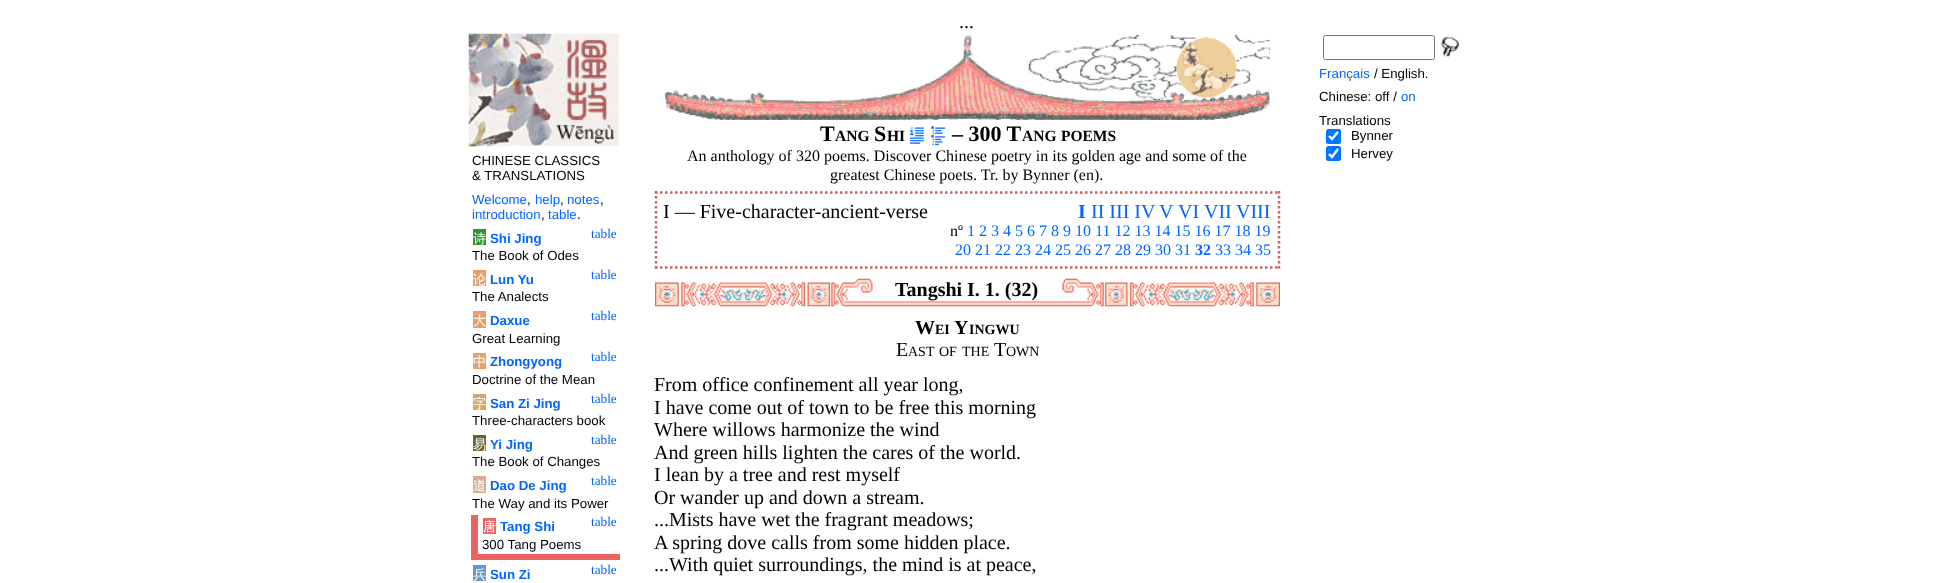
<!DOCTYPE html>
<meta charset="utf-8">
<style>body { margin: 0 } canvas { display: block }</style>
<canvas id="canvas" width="1933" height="583"></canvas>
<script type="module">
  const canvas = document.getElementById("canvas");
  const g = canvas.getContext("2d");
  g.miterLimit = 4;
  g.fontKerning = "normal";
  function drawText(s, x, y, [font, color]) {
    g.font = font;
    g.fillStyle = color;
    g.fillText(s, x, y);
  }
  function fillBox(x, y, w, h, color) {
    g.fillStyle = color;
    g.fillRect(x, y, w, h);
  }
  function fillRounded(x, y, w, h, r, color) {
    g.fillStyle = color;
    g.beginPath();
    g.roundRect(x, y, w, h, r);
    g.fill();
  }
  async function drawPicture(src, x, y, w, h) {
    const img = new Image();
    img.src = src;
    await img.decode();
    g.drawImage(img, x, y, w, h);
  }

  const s1 = ["20px Liberation Serif", "#000000"];
  const s2 = ["13.25px Liberation Sans", "#0066FF"];
  const s3 = ["13.25px Liberation Sans", "#000000"];
  const s4 = ["500 13.25px WenQuanYi Zen Hei", "#FFFFFF"];
  const s5 = ["bold 13.25px Liberation Sans", "#0066FF"];
  const s6 = ["13.25px Liberation Serif", "#0066FF"];
  const s7 = ["bold 22px Liberation Serif", "#000000"];
  const s8 = ["bold 15.5px Liberation Serif", "#000000"];
  const s9 = ["16px Liberation Serif", "#000000"];
  const s10 = ["bold 20px Liberation Serif", "#0066FF"];
  const s11 = ["20px Liberation Serif", "#0066FF"];
  const s12 = ["16px Liberation Serif", "#0066FF"];
  const s13 = ["bold 16px Liberation Serif", "#0066FF"];
  const s14 = ["bold 20px Liberation Serif", "#000000"];
  const s15 = ["bold 14px Liberation Serif", "#000000"];
  const s16 = ["14px Liberation Serif", "#000000"];

  fillBox(0, 0, 1933, 583, "#FFFFFF");
  drawText("...", 959, 28, s1);
  g.beginPath();
  g.roundRect(1323.5, 35.5, 111, 24, 2);
  g.strokeStyle = "#767676";
  g.stroke();
  await drawPicture("pic1.png", 1441, 36, 18, 21);
  drawText("Français", 1319, 78, s2);
  drawText("/ English.", 1374, 78, s3);
  drawText("Chinese: off /", 1319, 101, s3);
  drawText("on", 1401, 101, s2);
  drawText("Translations", 1319, 125, s3);
  fillRounded(1326, 129, 15, 15, 2.5, "#0075FF");
  g.beginPath();
  g.moveTo(1329, 136);
  g.lineTo(1332, 139);
  g.lineTo(1338, 132);
  g.strokeStyle = "#FFFFFF";
  g.lineWidth = 2.4;
  g.stroke();
  drawText("Bynner", 1351, 140, s3);
  fillRounded(1326, 146, 15, 15, 2.5, "#0075FF");
  g.beginPath();
  g.moveTo(1329, 154);
  g.lineTo(1332, 157);
  g.lineTo(1338, 149);
  g.stroke();
  drawText("Hervey", 1351, 158, s3);
  await drawPicture("pic2.png", 468, 33, 151, 114);
  drawText("CHINESE CLASSICS", 472, 165, s3);
  drawText("& TRANSLATIONS", 472, 180, s3);
  drawText("Welcome", 472, 204, s2);
  drawText(",", 527, 204, s3);
  drawText("help", 535, 204, s2);
  drawText(",", 560, 204, s3);
  drawText("notes", 567, 204, s2);
  drawText(",", 600, 204, s3);
  drawText("introduction", 472, 219, s2);
  drawText(",", 541, 219, s3);
  drawText("table", 548, 219, s2);
  drawText(".", 577, 219, s3);
  fillBox(473, 229, 13, 16, "#329333");
  drawText("诗", 473, 243, s4);
  drawText("Shi Jing", 490, 243, s5);
  drawText("The Book of Odes", 472, 260, s3);
  drawText("table", 591, 238, s6);
  fillBox(473, 270, 13, 16, "#E79F6B");
  drawText("论", 473, 284, s4);
  drawText("Lun Yu", 490, 284, s5);
  drawText("The Analects", 472, 301, s3);
  drawText("table", 591, 279, s6);
  fillBox(473, 311, 13, 17, "#E79F6B");
  drawText("大", 473, 325, s4);
  drawText("Daxue", 490, 325, s5);
  drawText("Great Learning", 472, 343, s3);
  drawText("table", 591, 320, s6);
  fillBox(473, 353, 13, 16, "#DFA46C");
  drawText("中", 473, 366, s4);
  drawText("Zhongyong", 490, 366, s5);
  drawText("Doctrine of the Mean", 472, 384, s3);
  drawText("table", 591, 361, s6);
  drawText("table", 591, 403, s6);
  fillBox(473, 394, 13, 16, "#DFA46C");
  drawText("字", 473, 408, s4);
  drawText("San Zi Jing", 490, 408, s5);
  drawText("Three-characters book", 472, 425, s3);
  fillBox(473, 435, 13, 16, "#666633");
  drawText("易", 473, 449, s4);
  drawText("Yi Jing", 490, 449, s5);
  drawText("The Book of Changes", 472, 466, s3);
  drawText("table", 591, 444, s6);
  drawText("table", 591, 485, s6);
  fillBox(473, 476, 13, 17, "#D5A994");
  drawText("道", 473, 490, s4);
  drawText("Dao De Jing", 490, 490, s5);
  drawText("The Way and its Power", 472, 508, s3);
  fillBox(471, 554, 149, 6, "#EB6363");
  fillBox(471, 515, 7, 45, "#EB6363");
  fillBox(483, 518, 13, 16, "#EB6363");
  drawText("唐", 483, 531, s4);
  drawText("Tang Shi", 500, 531, s5);
  drawText("300 Tang Poems", 482, 549, s3);
  drawText("table", 591, 526, s6);
  fillBox(473, 565, 13, 16, "#6599CD");
  drawText("兵", 473, 579, s4);
  drawText("Sun Zi", 490, 579, s5);
  drawText("table", 591, 574, s6);
  await drawPicture("pic3.png", 664, 35, 606, 85);
  drawText("T", 820, 141, s7);
  drawText("ANG", 835, 141, s8);
  drawText("S", 874, 141, s7);
  drawText("HI", 887, 141, s8);
  await drawPicture("pic4.png", 909, 127, 15, 17);
  await drawPicture("pic5.png", 931, 126, 15, 20);
  drawText("– 300 T", 952, 141, s7);
  drawText("ANG", 1022, 141, s8);
  drawText("POEMS", 1061, 141, s8);
  drawText("An anthology of 320 poems. Discover Chinese poetry in its golden age and some of the", 687, 161, s9);
  drawText("greatest Chinese poets. Tr. by Bynner (en).", 830, 180, s9);
  g.beginPath();
  g.moveTo(655, 192.5);
  g.lineTo(1280, 192.5);
  g.strokeStyle = "#CC6666";
  g.lineWidth = 2.5;
  g.setLineDash([2.5, 2.5]);
  g.stroke();
  g.beginPath();
  g.moveTo(1279, 191);
  g.lineTo(1279, 269);
  g.stroke();
  g.beginPath();
  g.moveTo(655, 267.5);
  g.lineTo(1280, 267.5);
  g.stroke();
  g.beginPath();
  g.moveTo(656, 191);
  g.lineTo(656, 269);
  g.stroke();
  drawText("I — Five-character-ancient-verse", 663, 218, s1);
  drawText("I", 1078, 218, s10);
  drawText("II III IV", 1091, 218, s11);
  drawText("V", 1159, 218, s11);
  drawText("VI", 1178, 218, s11);
  drawText("VII", 1204, 218, s11);
  drawText("VIII", 1236, 218, s11);
  drawText("nº", 950, 236, s9);
  drawText("1 2 3 4 5 6 7 8 9 10 11 12 13 14 15 16 17 18 19", 967, 236, s12);
  drawText("20 21 22 23 24 25 26 27 28 29 30 31", 955, 255, s12);
  drawText("32", 1195, 255, s13);
  drawText("33 34 35", 1215, 255, s12);
  await drawPicture("pic6.png", 655, 278, 625, 29);
  drawText("Tangshi I. 1. (32)", 895, 296, s14);
  drawText("W", 915, 334, s14);
  drawText("EI", 935, 334, s15);
  drawText("Y", 954, 334, s14);
  drawText("INGWU", 969, 334, s15);
  drawText("E", 896, 356, s1);
  drawText("AST", 908, 356, s16);
  drawText("OF", 939, 356, s16);
  drawText("THE", 962, 356, s16);
  drawText("T", 994, 356, s1);
  drawText("OWN", 1006, 356, s16);
  drawText("From office confinement all year long,", 654, 391, s1);
  drawText("I have come out of town to be free this morning", 654, 414, s1);
  drawText("Where willows harmonize the wind", 654, 436, s1);
  drawText("And green hills lighten the cares of the world.", 654, 459, s1);
  drawText("I lean by a tree and rest myself", 654, 481, s1);
  drawText("Or wander up and down a stream.", 654, 504, s1);
  drawText("...Mists have wet the fragrant meadows;", 654, 526, s1);
  drawText("A spring dove calls from some hidden place.", 654, 549, s1);
  drawText("...With quiet surroundings, the mind is at peace,", 654, 571, s1);
</script>
